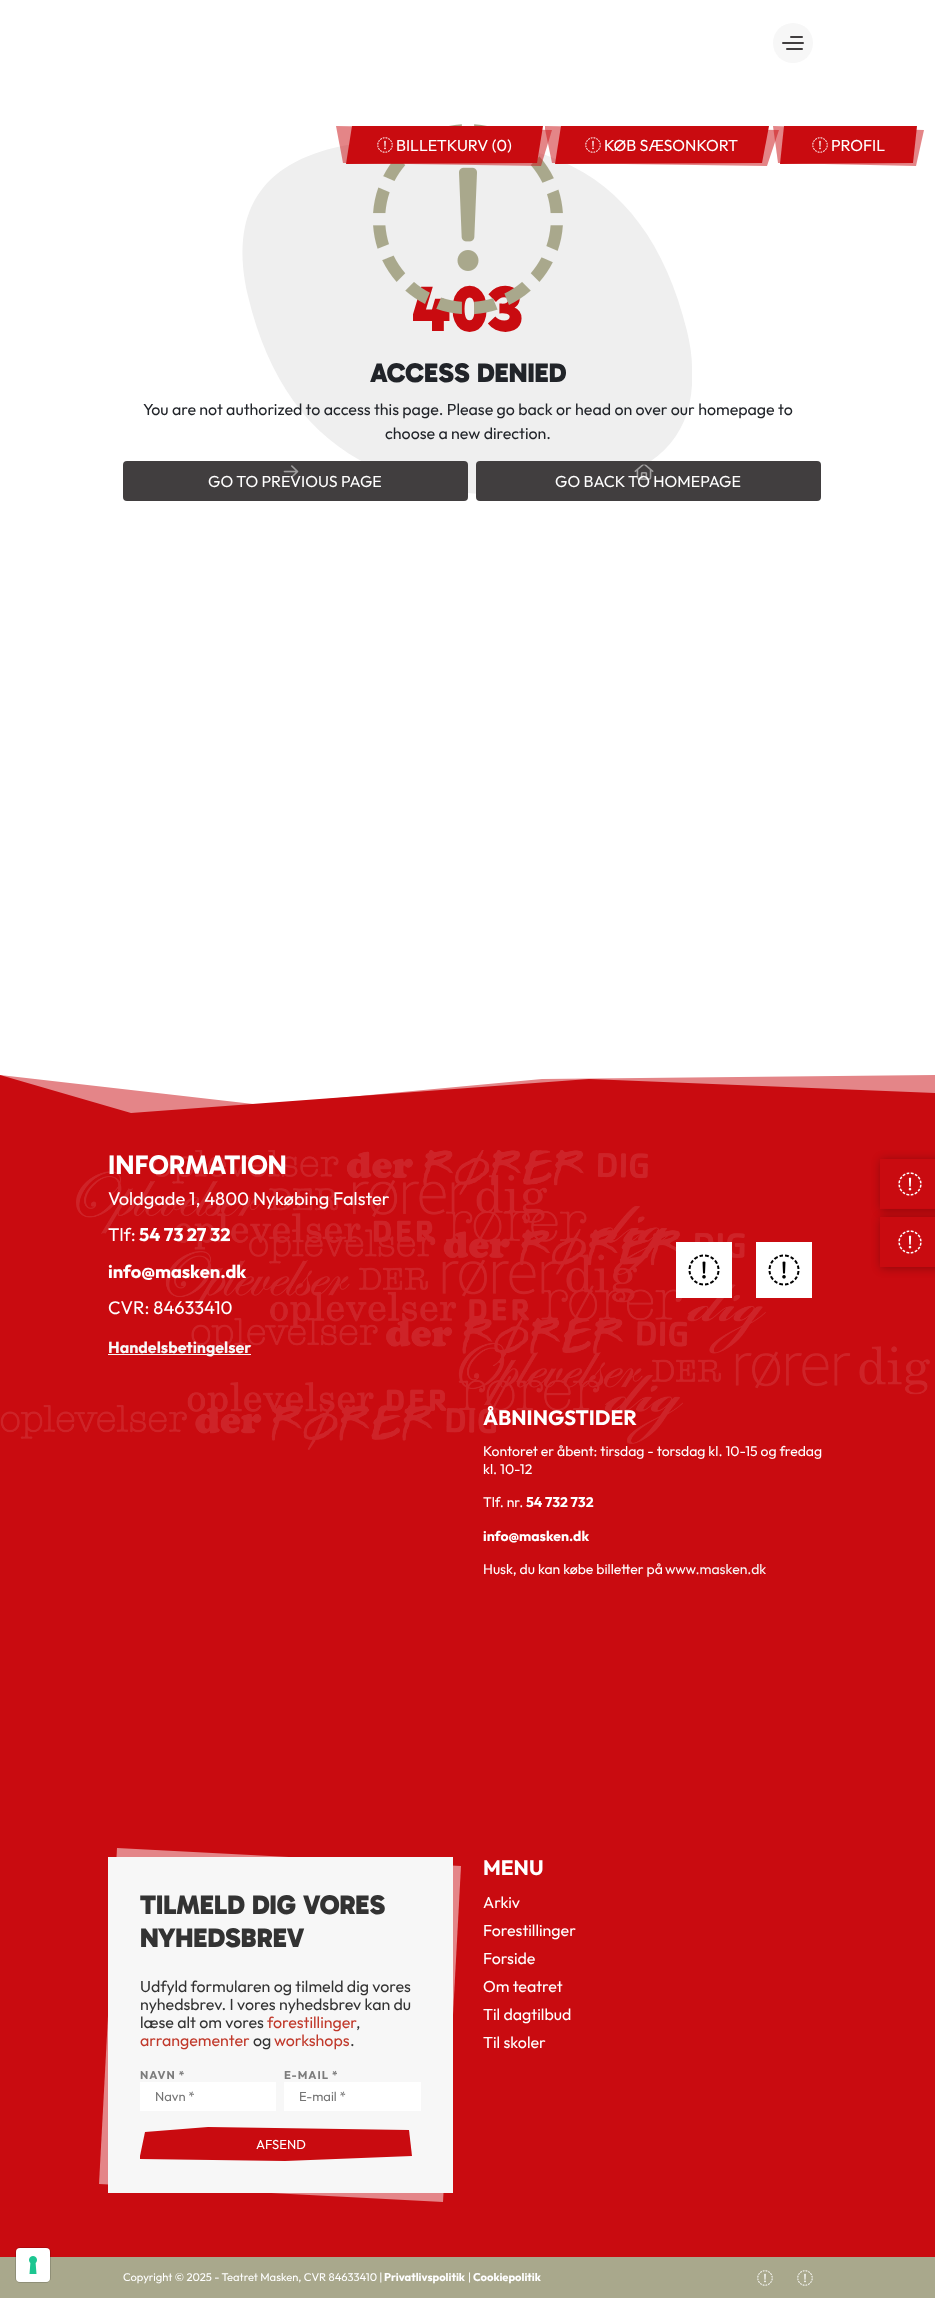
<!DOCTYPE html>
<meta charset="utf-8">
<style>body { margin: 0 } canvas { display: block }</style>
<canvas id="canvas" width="935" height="2298"></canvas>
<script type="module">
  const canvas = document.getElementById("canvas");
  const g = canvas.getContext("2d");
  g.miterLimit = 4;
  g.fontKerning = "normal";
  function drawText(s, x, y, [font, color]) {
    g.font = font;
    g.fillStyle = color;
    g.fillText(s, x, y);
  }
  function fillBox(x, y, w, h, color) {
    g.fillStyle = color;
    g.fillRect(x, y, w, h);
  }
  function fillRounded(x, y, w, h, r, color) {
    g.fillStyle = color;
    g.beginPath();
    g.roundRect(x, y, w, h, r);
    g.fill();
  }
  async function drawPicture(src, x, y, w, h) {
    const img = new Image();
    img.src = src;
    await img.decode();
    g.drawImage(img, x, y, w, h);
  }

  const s1 = ["900 65px Gabarito", "#C90B10"];
  const s2 = ["16px Outfit", "#FFFFFF"];
  const s3 = ["900 27.25px Gabarito", "#212429"];
  const s4 = ["16px Outfit", "#212429"];
  const s5 = ["bold 27.25px Gabarito", "#FFFFFF"];
  const s6 = ["18.25px Outfit", "#FFFFFF"];
  const s7 = ["bold 18.25px Outfit", "#FFFFFF"];
  const s8 = ["bold 16px Outfit", "#F7F7F7"];
  const s9 = ["bold 20.75px Outfit", "#FFFFFF"];
  const s10 = ["14px Outfit", "#FFFFFF"];
  const s11 = ["bold 14px Outfit", "#FFFFFF"];
  const s12 = ["14px Outfit", "#F7F7F7"];
  const s13 = ["900 27.25px Gabarito", "#333333"];
  const s14 = ["16px Outfit", "#333333"];
  const s15 = ["16px Outfit", "#C0392B"];
  const s16 = ["bold 11.2px Outfit", "#7C7C7C"];
  const s17 = ["13px Outfit", "#757575"];
  const s18 = ["13px Outfit", "#FFFFFF"];
  const s19 = ["11.2px Outfit", "#FFFFFF"];
  const s20 = ["bold 11.2px Outfit", "#FFFFFF"];

  fillBox(0, 0, 935, 2298, "#FFFFFF");
  fillBox(0, 1150, 935, 1107, "#C90B10");
  fillBox(0, 2257, 935, 41, "#A9A88C");
  g.beginPath();
  g.roundRect(15.5, 2247.5, 35, 35, 4.5);
  g.strokeStyle = "rgba(0, 0, 0, 0.15)";
  g.stroke();
  fillRounded(16, 2248, 34, 34, 4, "#FFFFFF");
  await drawPicture("pic1.png", 29, 2256, 8, 18);
  g.fillStyle = "#F7F7F7";
  g.beginPath();
  g.arc(793, 43, 20, 0, Math.PI * 2);
  g.fill();
  fillRounded(782, 42, 22, 2, 1, "#413E3F");
  fillRounded(790, 36, 13, 2, 1, "#413E3F");
  fillRounded(786, 48, 17, 2, 1, "#413E3F");
  g.fillStyle = "#EFEFEF";
  g.beginPath();
  g.moveTo(371, 466);
  g.bezierCurveTo(434, 496, 507, 503, 591, 485);
  g.bezierCurveTo(655, 472, 689, 438, 692, 385);
  g.lineTo(692, 367);
  g.bezierCurveTo(692, 356, 690, 344, 687, 331);
  g.bezierCurveTo(666, 245, 624, 188, 561, 161);
  g.bezierCurveTo(497, 134, 424, 129, 342, 146);
  g.bezierCurveTo(260, 163, 229, 213, 248, 296);
  g.bezierCurveTo(268, 380, 309, 436, 371, 466);
  g.closePath();
  g.fill();
  drawText("403", 411, 331, s1);
  await drawPicture("pic3.png", 373, 124, 190, 190);
  g.fillStyle = "rgba(201, 11, 16, 0.5)";
  g.beginPath();
  g.moveTo(552, 130);
  g.lineTo(336, 126);
  g.lineTo(343, 163);
  g.lineTo(541, 166);
  g.closePath();
  g.fill();
  g.fillStyle = "#C90B10";
  g.beginPath();
  g.moveTo(352, 126);
  g.lineTo(346, 164);
  g.lineTo(537, 163);
  g.lineTo(543, 126);
  g.closePath();
  g.fill();
  await drawPicture("pic2.png", 377, 137, 16, 16);
  drawText("BILLETKURV (0)", 396, 151, s2);
  g.fillStyle = "rgba(201, 11, 16, 0.5)";
  g.beginPath();
  g.moveTo(779, 130);
  g.lineTo(767, 166);
  g.lineTo(552, 163);
  g.lineTo(545, 129);
  g.lineTo(545, 126);
  g.closePath();
  g.fill();
  g.fillStyle = "#C90B10";
  g.beginPath();
  g.moveTo(561, 126);
  g.lineTo(555, 164);
  g.lineTo(762, 163);
  g.lineTo(769, 126);
  g.closePath();
  g.fill();
  await drawPicture("pic2.png", 585, 137, 16, 16);
  drawText("KØB SÆSONKORT", 604, 151, s2);
  g.fillStyle = "rgba(201, 11, 16, 0.5)";
  g.beginPath();
  g.moveTo(924, 130);
  g.lineTo(773, 126);
  g.lineTo(778, 163);
  g.lineTo(916, 166);
  g.closePath();
  g.fill();
  g.fillStyle = "#C90B10";
  g.beginPath();
  g.moveTo(784, 126);
  g.lineTo(780, 164);
  g.lineTo(913, 163);
  g.lineTo(917, 126);
  g.closePath();
  g.fill();
  await drawPicture("pic2.png", 812, 137, 16, 16);
  drawText("PROFIL", 831, 151, s2);
  drawText("ACCESS DENIED", 370, 382, s3);
  drawText("You are not authorized to access this page. Please go back or head on over our homepage to", 143, 415, s4);
  drawText("choose a new direction.", 385, 439, s4);
  fillRounded(123, 461, 345, 40, 4, "#413E3F");
  await drawPicture("pic4.png", 283, 465, 16, 13);
  drawText("GO TO PREVIOUS PAGE", 208, 487, s2);
  fillRounded(476, 461, 345, 40, 4, "#413E3F");
  await drawPicture("pic5.png", 634, 464, 20, 16);
  drawText("GO BACK TO HOMEPAGE", 555, 487, s2);
  g.fillStyle = "#E48588";
  g.beginPath();
  g.moveTo(0, 1075);
  g.lineTo(0, 1150);
  g.lineTo(935, 1150);
  g.lineTo(935, 1075);
  g.lineTo(542, 1079);
  g.lineTo(262, 1105);
  g.closePath();
  g.fill();
  g.fillStyle = "#C90B10";
  g.beginPath();
  g.moveTo(0, 1075);
  g.lineTo(0, 1150);
  g.lineTo(935, 1150);
  g.lineTo(935, 1093);
  g.lineTo(589, 1079);
  g.lineTo(131, 1113);
  g.closePath();
  g.fill();
  drawText("INFORMATION", 108, 1174, s5);
  drawText("Voldgade 1, 4800 Nykøbing Falster", 108, 1205, s6);
  drawText("Tlf:", 108, 1241, s6);
  drawText("54 73 27 32", 139, 1241, s7);
  drawText("info@masken.dk", 108, 1278, s7);
  drawText("CVR: 84633410", 108, 1314, s6);
  fillBox(108, 1354, 143, 1, "#F7F7F7");
  drawText("Handelsbetingelser", 108, 1353, s8);
  await drawPicture("pic7.png", 0, 1150, 930, 300);
  fillBox(676, 1242, 56, 56, "#FFFFFF");
  await drawPicture("pic6.png", 688, 1254, 32, 32);
  fillBox(756, 1242, 56, 56, "#FFFFFF");
  await drawPicture("pic6.png", 768, 1254, 32, 32);
  drawText("ÅBNINGSTIDER", 483, 1425, s9);
  drawText("Kontoret er åbent: tirsdag - torsdag kl. 10-15 og fredag", 483, 1456, s10);
  drawText("kl. 10-12", 483, 1474, s10);
  drawText("Tlf. nr.", 483, 1507, s10);
  drawText("54 732 732", 526, 1507, s11);
  drawText("info@masken.dk", 483, 1541, s11);
  drawText("Husk, du kan købe billetter på", 483, 1574, s10);
  drawText("www.masken.dk", 665, 1574, s12);
  g.fillStyle = "#E48588";
  g.beginPath();
  g.moveTo(117, 1848);
  g.lineTo(461, 1866);
  g.lineTo(443, 2202);
  g.lineTo(99, 2184);
  g.closePath();
  g.fill();
  fillBox(108, 1857, 345, 336, "#F7F7F7");
  drawText("TILMELD DIG VORES", 140, 1914, s13);
  drawText("NYHEDSBREV", 140, 1947, s13);
  drawText("Udfyld formularen og tilmeld dig vores", 140, 1992, s14);
  drawText("nyhedsbrev. I vores nyhedsbrev kan du", 140, 2010, s14);
  drawText("læse alt om vores", 140, 2028, s14);
  drawText("forestillinger", 267, 2028, s15);
  drawText(",", 356, 2028, s14);
  drawText("arrangementer", 140, 2046, s15);
  drawText("og", 253, 2046, s14);
  drawText("workshops", 274, 2046, s15);
  drawText(".", 350, 2046, s14);
  g.letterSpacing = "1px";
  drawText("NAVN *", 140, 2079, s16);
  fillBox(140, 2082, 136, 29, "#FFFFFF");
  g.letterSpacing = "0px";
  drawText("Navn *", 155, 2101, s17);
  g.letterSpacing = "1px";
  drawText("E-MAIL *", 284, 2079, s16);
  fillBox(284, 2082, 137, 29, "#FFFFFF");
  g.letterSpacing = "0px";
  drawText("E-mail *", 299, 2101, s17);
  g.fillStyle = "#C90B10";
  g.beginPath();
  g.moveTo(145, 2132);
  g.lineTo(140, 2156);
  g.lineTo(140, 2159);
  g.lineTo(285, 2161);
  g.lineTo(412, 2156);
  g.lineTo(409, 2130);
  g.lineTo(208, 2127);
  g.closePath();
  g.fill();
  drawText("AFSEND", 256, 2149, s18);
  drawText("MENU", 483, 1875, s9);
  drawText("Arkiv", 483, 1908, s2);
  drawText("Forestillinger", 483, 1936, s2);
  drawText("Forside", 483, 1964, s2);
  drawText("Om teatret", 483, 1992, s2);
  drawText("Til dagtilbud", 483, 2020, s2);
  drawText("Til skoler", 483, 2048, s2);
  g.save();
  g.beginPath();
  g.moveTo(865, 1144);
  g.lineTo(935, 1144);
  g.lineTo(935, 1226);
  g.lineTo(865, 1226);
  g.closePath();
  g.moveTo(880, 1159);
  g.lineTo(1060, 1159);
  g.lineTo(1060, 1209);
  g.lineTo(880, 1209);
  g.closePath();
  g.clip("evenodd");
  g.fillStyle = "rgba(0, 0, 0, 0.3)";
  g.filter = "blur(5px)";
  g.beginPath();
  g.rect(881, 1160, 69, 50);
  g.fill();
  g.filter = "none";
  g.restore();
  await drawPicture("pic8.png", 898, 1172, 24, 24);
  g.fillStyle = "rgba(0, 0, 0, 0.3)";
  g.filter = "blur(5px)";
  g.beginPath();
  g.rect(881, 1218, 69, 50);
  g.fill();
  g.filter = "none";
  fillBox(880, 1217, 55, 50, "#C90B10");
  await drawPicture("pic8.png", 898, 1230, 24, 24);
  drawText("Copyright © 2025 - Teatret Masken, CVR 84633410 |", 123, 2281, s19);
  drawText("Privatlivspolitik", 384, 2281, s20);
  drawText("|", 468, 2281, s19);
  drawText("Cookiepolitik", 473, 2281, s20);
  await drawPicture("pic9.png", 757, 2270, 16, 16);
  await drawPicture("pic9.png", 797, 2270, 16, 16);
</script>
